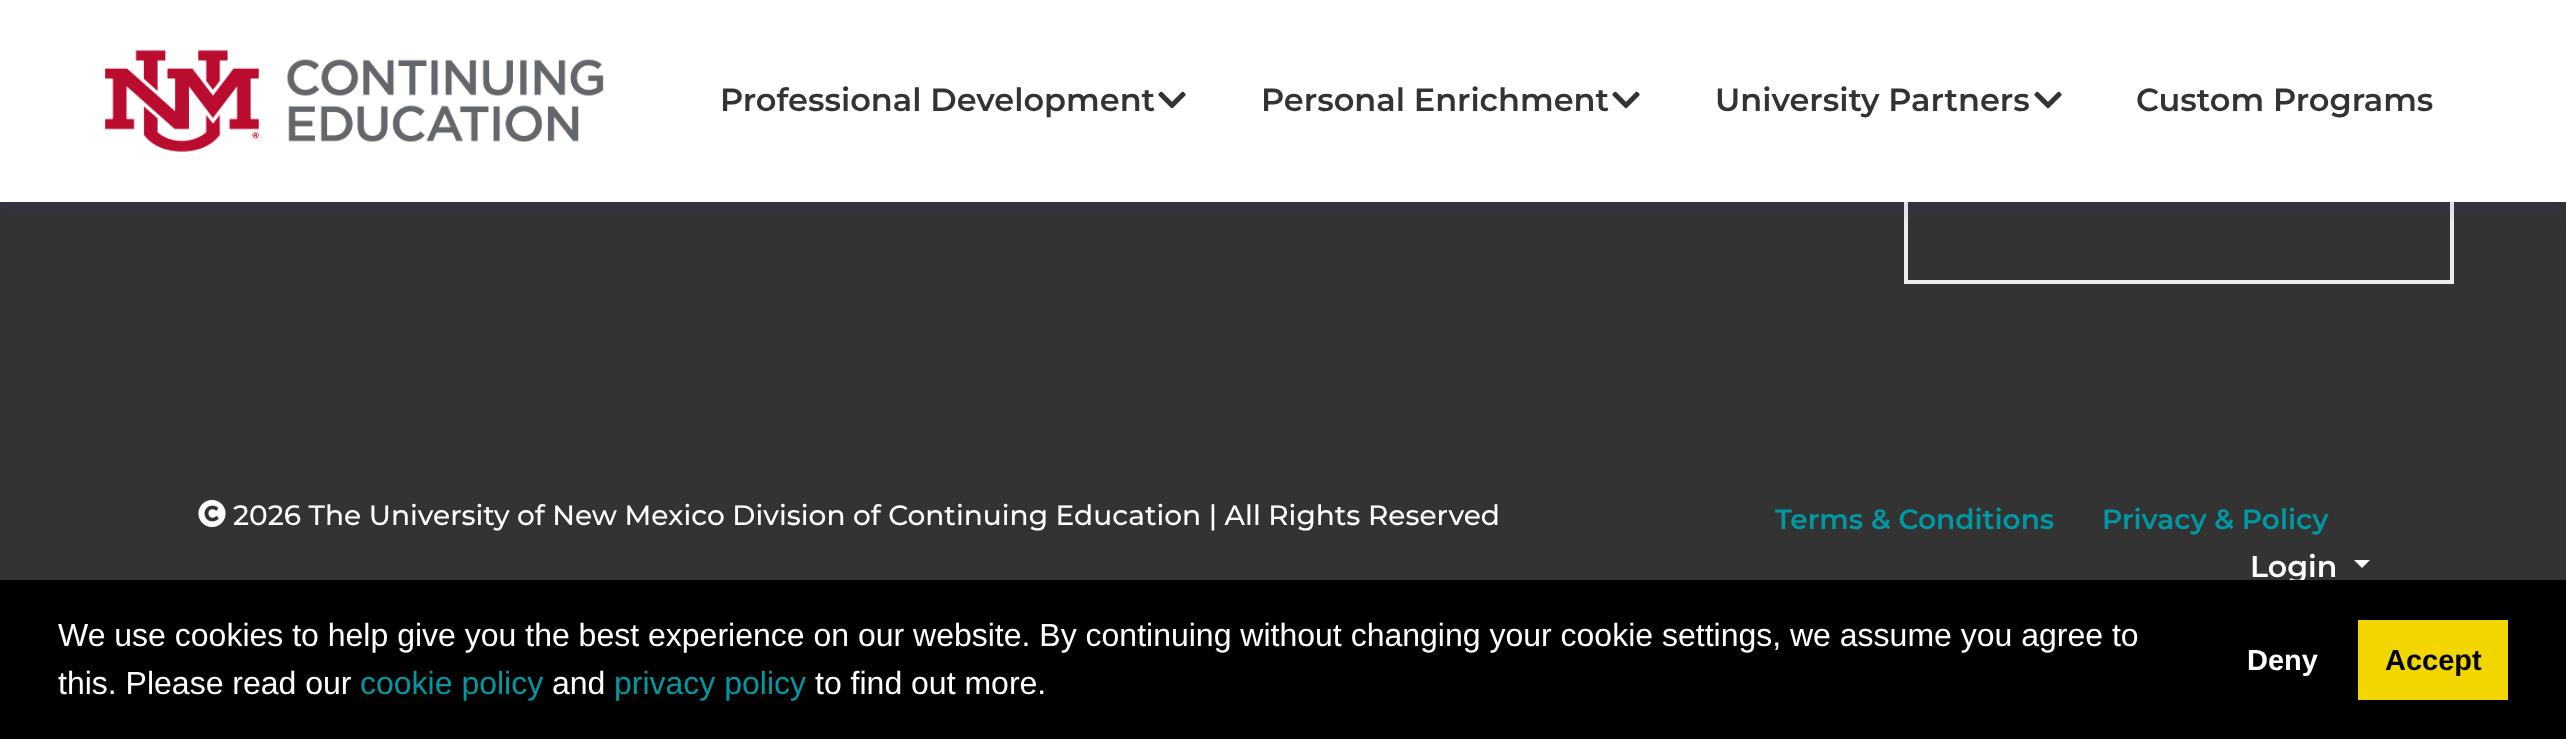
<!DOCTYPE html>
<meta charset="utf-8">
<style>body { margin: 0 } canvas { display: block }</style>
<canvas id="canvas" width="2566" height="739"></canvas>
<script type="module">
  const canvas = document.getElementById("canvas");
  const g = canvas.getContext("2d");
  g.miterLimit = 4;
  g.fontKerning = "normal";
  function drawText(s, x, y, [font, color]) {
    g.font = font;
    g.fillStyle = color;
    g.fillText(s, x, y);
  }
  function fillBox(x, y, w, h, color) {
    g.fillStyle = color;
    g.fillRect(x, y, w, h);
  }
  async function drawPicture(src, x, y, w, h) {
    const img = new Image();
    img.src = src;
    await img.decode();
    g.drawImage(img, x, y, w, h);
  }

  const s1 = ["600 32px Montserrat", "#333333"];
  const s2 = ["500 28px Montserrat", "#FFFFFF"];
  const s3 = ["600 28px Montserrat", "#0098A2"];
  const s4 = ["600 30px Montserrat", "#FFFFFF"];
  const s5 = ["32px Liberation Sans", "#FFFFFF"];
  const s6 = ["32px Liberation Sans", "#0098A2"];
  const s7 = ["bold 29px Liberation Sans", "#FFFFFF"];
  const s8 = ["bold 29px Liberation Sans", "#000000"];

  fillBox(0, 0, 2566, 739, "#333333");
  g.strokeStyle = "#EDEDED";
  g.lineWidth = 4;
  g.strokeRect(1906, -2, 546, 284);
  g.fillStyle = "rgba(46, 56, 220, 0.1)";
  g.filter = "blur(10px)";
  g.beginPath();
  g.rect(0, 10, 2566, 202);
  g.fill();
  g.filter = "none";
  fillBox(0, 0, 2566, 202, "#FFFFFF");
  await drawPicture("pic1.png", 105, 50, 499, 102);
  drawText("Professional Development", 720, 111, s1);
  await drawPicture("pic2.png", 1158, 91, 28, 18);
  drawText("Personal Enrichment", 1261, 111, s1);
  await drawPicture("pic2.png", 1612, 91, 28, 18);
  drawText("University Partners", 1715, 111, s1);
  await drawPicture("pic2.png", 2034, 91, 28, 18);
  drawText("Custom Programs", 2136, 111, s1);
  await drawPicture("pic3.png", 198, 499, 28, 29);
  drawText("2026 The University of New Mexico Division of Continuing Education | All Rights Reserved", 233, 525, s2);
  drawText("Terms & Conditions", 1775, 529, s3);
  drawText("Privacy & Policy", 2102, 529, s3);
  drawText("Login", 2250, 577, s4);
  g.beginPath();
  g.moveTo(2354, 560);
  g.lineTo(2370, 560);
  g.lineTo(2362, 568);
  g.closePath();
  g.fill();
  fillBox(0, 580, 2566, 159, "#000000");
  drawText("We use cookies to help give you the best experience on our website. By continuing without changing your cookie settings, we assume you agree to", 58, 646, s5);
  drawText("this. Please read our", 58, 694, s5);
  drawText("cookie policy", 360, 694, s6);
  drawText("and", 552, 694, s5);
  drawText("privacy policy", 614, 694, s6);
  drawText("to find out more.", 815, 694, s5);
  drawText("Deny", 2247, 670, s7);
  fillBox(2358, 620, 150, 80, "#F1D600");
  drawText("Accept", 2385, 670, s8);
</script>
